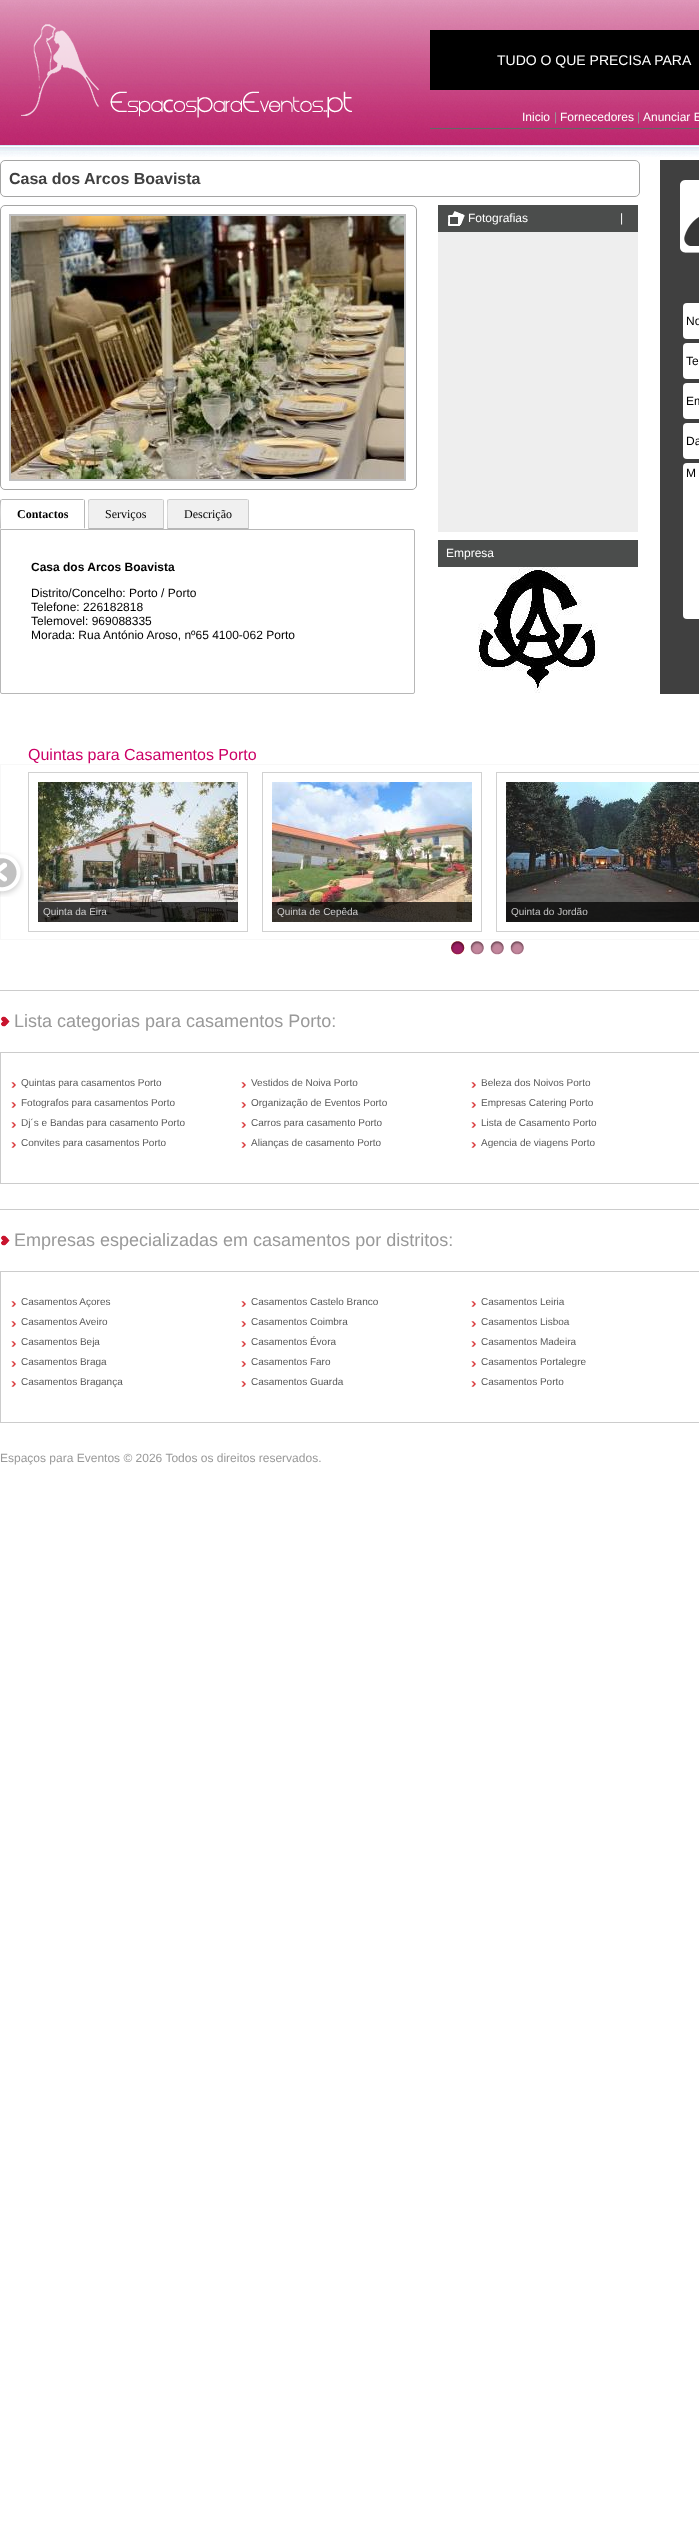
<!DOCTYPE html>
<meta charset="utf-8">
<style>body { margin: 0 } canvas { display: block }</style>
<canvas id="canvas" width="699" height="2543"></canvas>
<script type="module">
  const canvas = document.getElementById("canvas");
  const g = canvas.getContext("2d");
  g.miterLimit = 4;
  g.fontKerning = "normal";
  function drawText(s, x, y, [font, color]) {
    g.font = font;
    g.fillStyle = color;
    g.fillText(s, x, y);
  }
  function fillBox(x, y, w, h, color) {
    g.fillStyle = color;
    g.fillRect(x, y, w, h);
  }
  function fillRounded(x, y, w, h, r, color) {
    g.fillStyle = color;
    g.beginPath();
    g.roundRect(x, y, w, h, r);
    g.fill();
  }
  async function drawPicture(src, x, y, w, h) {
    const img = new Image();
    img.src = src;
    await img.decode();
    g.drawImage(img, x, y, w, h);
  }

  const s1 = ["14px Liberation Sans", "#FFFFFF"];
  const s2 = ["12px Liberation Sans", "#FFFFFF"];
  const s3 = ["12px Liberation Sans", "#999999"];
  const s4 = ["bold 16px Liberation Sans", "#404040"];
  const s5 = ["bold 12px Liberation Serif", "#000000"];
  const s6 = ["12px Liberation Serif", "#000000"];
  const s7 = ["bold 12px Liberation Sans", "#000000"];
  const s8 = ["12px Liberation Sans", "#000000"];
  const s9 = ["16px Liberation Sans", "#CC0066"];
  const s10 = ["10px Liberation Sans", "#CCCCCC"];
  const s11 = ["10px Liberation Sans", "#C5C5C5"];
  const s12 = ["18px Liberation Sans", "#999999"];
  const s13 = ["10px Liberation Sans", "#595959"];

  fillBox(0, 0, 699, 2543, "#FFFFFF");
  await drawPicture("pic1.png", 0, 0, 699, 157);
  await drawPicture("pic2.png", 21, 24, 331, 94);
  fillBox(430, 30, 269, 60, "#000000");
  drawText("TUDO O QUE PRECISA PARA", 497, 65, s1);
  fillBox(430, 128, 269, 1, "#666666");
  drawText("Inicio", 522, 121, s2);
  drawText("|", 554, 121, s3);
  drawText("Fornecedores", 560, 121, s2);
  drawText("|", 637, 121, s3);
  drawText("Anunciar E", 643, 121, s2);
  g.beginPath();
  g.roundRect(0.5, 160.5, 639, 36, 4.5);
  g.strokeStyle = "#A5A5A4";
  g.stroke();
  drawText("Casa dos Arcos Boavista", 9, 184, s4);
  fillBox(438, 205, 200, 27, "#4B4D4C");
  await drawPicture("pic3.png", 448, 211, 17, 15);
  drawText("Fotografias", 468, 222, s2);
  drawText("|", 620, 222, s2);
  fillBox(438, 232, 200, 300, "#EEEEEE");
  fillBox(438, 540, 200, 27, "#4B4D4C");
  drawText("Empresa", 446, 557, s2);
  await drawPicture("pic4.png", 478, 567, 120, 126);
  g.beginPath();
  g.roundRect(0.5, 205.5, 416, 284, 4.5);
  g.stroke();
  g.strokeStyle = "#C0C0C0";
  g.lineWidth = 2;
  g.strokeRect(10, 215, 395, 265);
  await drawPicture("pic5.png", 11, 216, 393, 263);
  drawText("Contactos", 17, 518, s5);
  g.fillStyle = "#B7B7B7";
  g.beginPath();
  g.moveTo(2, 499);
  g.lineTo(1, 500);
  g.lineTo(84, 500);
  g.lineTo(83, 499);
  g.closePath();
  g.fill();
  g.beginPath();
  g.moveTo(85, 529);
  g.lineTo(85, 501);
  g.lineTo(84.5, 499.5);
  g.lineTo(84, 500);
  g.lineTo(84, 528);
  g.closePath();
  g.fill();
  g.fillStyle = "#FFFFFF";
  g.beginPath();
  g.moveTo(85, 529);
  g.lineTo(84, 528);
  g.lineTo(1, 528);
  g.lineTo(0, 529);
  g.closePath();
  g.fill();
  g.fillStyle = "#B7B7B7";
  g.beginPath();
  g.moveTo(0, 529);
  g.lineTo(1, 528);
  g.bezierCurveTo(1, 524.5, 0, 502, 1.5, 500.5);
  g.lineTo(0.5, 499.5);
  g.lineTo(0, 501);
  g.closePath();
  g.fill();
  g.fillStyle = "#F0F0F0";
  g.beginPath();
  g.roundRect(88, 499, 76, 30, [2, 2, 0, 0]);
  g.fill();
  drawText("Serviços", 105, 518, s6);
  g.fillStyle = "#CCCCCC";
  g.beginPath();
  g.moveTo(90, 499);
  g.lineTo(89, 500);
  g.lineTo(163, 500);
  g.lineTo(162, 499);
  g.closePath();
  g.fill();
  g.beginPath();
  g.moveTo(164, 529);
  g.lineTo(164, 501);
  g.lineTo(163.5, 499.5);
  g.lineTo(163, 500);
  g.lineTo(163, 528);
  g.closePath();
  g.fill();
  g.fillStyle = "#B7B7B7";
  g.beginPath();
  g.moveTo(164, 529);
  g.lineTo(163, 528);
  g.lineTo(89, 528);
  g.lineTo(88, 529);
  g.closePath();
  g.fill();
  g.fillStyle = "#CCCCCC";
  g.beginPath();
  g.moveTo(88, 529);
  g.lineTo(89, 528);
  g.bezierCurveTo(89, 524.5, 88, 502, 89.5, 500.5);
  g.lineTo(88.5, 499.5);
  g.lineTo(88, 501);
  g.closePath();
  g.fill();
  g.fillStyle = "#F0F0F0";
  g.beginPath();
  g.roundRect(167, 499, 82, 30, [2, 2, 0, 0]);
  g.fill();
  drawText("Descrição", 184, 518, s6);
  g.fillStyle = "#CCCCCC";
  g.beginPath();
  g.moveTo(169, 499);
  g.lineTo(168, 500);
  g.lineTo(248, 500);
  g.lineTo(247, 499);
  g.closePath();
  g.fill();
  g.beginPath();
  g.moveTo(249, 529);
  g.lineTo(249, 501);
  g.lineTo(248.5, 499.5);
  g.lineTo(248, 500);
  g.lineTo(248, 528);
  g.closePath();
  g.fill();
  g.fillStyle = "#B7B7B7";
  g.beginPath();
  g.moveTo(249, 529);
  g.lineTo(248, 528);
  g.lineTo(168, 528);
  g.lineTo(167, 529);
  g.closePath();
  g.fill();
  g.fillStyle = "#CCCCCC";
  g.beginPath();
  g.moveTo(167, 529);
  g.lineTo(168, 528);
  g.bezierCurveTo(168, 524.5, 167, 502, 168.5, 500.5);
  g.lineTo(167.5, 499.5);
  g.lineTo(167, 501);
  g.closePath();
  g.fill();
  g.beginPath();
  g.roundRect(0.5, 529.5, 414, 164, [0, 1.5, 1.5, 1.5]);
  g.strokeStyle = "#B7B7B7";
  g.lineWidth = 1;
  g.stroke();
  drawText("Casa dos Arcos Boavista", 31, 571, s7);
  drawText("Distrito/Concelho: Porto / Porto", 31, 597, s8);
  drawText("Telefone: 226182818", 31, 611, s8);
  drawText("Telemovel: 969088335", 31, 625, s8);
  drawText("Morada: Rua António Aroso, nº65 4100-062 Porto", 31, 639, s8);
  fillBox(660, 160, 39, 534, "#404040");
  await drawPicture("pic6.png", 680, 180, 19, 73);
  fillRounded(683, 303, 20, 36, 4, "#FFFFFF");
  drawText("No", 686, 325, s8);
  fillRounded(683, 343, 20, 36, 4, "#FFFFFF");
  drawText("Te", 686, 365, s8);
  fillRounded(683, 383, 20, 36, 4, "#FFFFFF");
  drawText("Em", 686, 405, s8);
  fillRounded(683, 423, 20, 36, 4, "#FFFFFF");
  drawText("Da", 686, 445, s8);
  fillRounded(683, 463, 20, 156, 4, "#FFFFFF");
  drawText("M", 686, 477, s8);
  drawText("Quintas para Casamentos Porto", 28, 760, s9);
  g.strokeStyle = "#F8F8F8";
  g.strokeRect(0.5, 764.5, 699, 175);
  await drawPicture("pic7.png", 0, 852, 24, 45);
  g.strokeStyle = "#D1D1D1";
  g.strokeRect(28.5, 772.5, 219, 159);
  await drawPicture("pic8.png", 38, 782, 200, 140);
  fillBox(38, 902, 200, 20, "rgba(0, 0, 0, 0.75)");
  drawText("Quinta da Eira", 43, 915, s10);
  g.strokeRect(262.5, 772.5, 219, 159);
  await drawPicture("pic9.png", 272, 782, 200, 140);
  fillBox(272, 902, 200, 20, "rgba(0, 0, 0, 0.75)");
  drawText("Quinta de Cepêda", 277, 915, s10);
  g.strokeRect(496.5, 772.5, 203, 159);
  await drawPicture("pic10.png", 506, 782, 193, 140);
  fillBox(506, 902, 193, 20, "rgba(0, 0, 0, 0.75)");
  drawText("Quinta do Jordão", 511, 915, s11);
  await drawPicture("pic11.png", 451, 941, 14, 14);
  await drawPicture("pic12.png", 470, 941, 14, 14);
  await drawPicture("pic12.png", 490, 941, 14, 14);
  await drawPicture("pic12.png", 510, 941, 14, 14);
  fillBox(0, 990, 699, 1, "#CCCCCC");
  await drawPicture("pic13.png", 1, 1016, 9, 11);
  drawText("Lista categorias para casamentos Porto:", 14, 1027, s12);
  g.strokeStyle = "#CCCCCC";
  g.strokeRect(0.5, 1052.5, 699, 131);
  await drawPicture("pic14.png", 11, 1082, 5, 6);
  drawText("Quintas para casamentos Porto", 21, 1086, s13);
  await drawPicture("pic14.png", 11, 1102, 5, 6);
  drawText("Fotografos para casamentos Porto", 21, 1106, s13);
  await drawPicture("pic14.png", 11, 1122, 5, 6);
  drawText("Dj´s e Bandas para casamento Porto", 21, 1126, s13);
  await drawPicture("pic14.png", 11, 1142, 5, 6);
  drawText("Convites para casamentos Porto", 21, 1146, s13);
  await drawPicture("pic14.png", 241, 1082, 5, 6);
  drawText("Vestidos de Noiva Porto", 251, 1086, s13);
  await drawPicture("pic14.png", 241, 1102, 5, 6);
  drawText("Organização de Eventos Porto", 251, 1106, s13);
  await drawPicture("pic14.png", 241, 1122, 5, 6);
  drawText("Carros para casamento Porto", 251, 1126, s13);
  await drawPicture("pic14.png", 241, 1142, 5, 6);
  drawText("Alianças de casamento Porto", 251, 1146, s13);
  await drawPicture("pic14.png", 471, 1082, 5, 6);
  drawText("Beleza dos Noivos Porto", 481, 1086, s13);
  await drawPicture("pic14.png", 471, 1102, 5, 6);
  drawText("Empresas Catering Porto", 481, 1106, s13);
  await drawPicture("pic14.png", 471, 1122, 5, 6);
  drawText("Lista de Casamento Porto", 481, 1126, s13);
  await drawPicture("pic14.png", 471, 1142, 5, 6);
  drawText("Agencia de viagens Porto", 481, 1146, s13);
  fillBox(0, 1209, 699, 1, "#CCCCCC");
  await drawPicture("pic13.png", 1, 1235, 9, 11);
  drawText("Empresas especializadas em casamentos por distritos:", 14, 1246, s12);
  g.strokeRect(0.5, 1271.5, 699, 151);
  await drawPicture("pic14.png", 11, 1301, 5, 6);
  drawText("Casamentos Açores", 21, 1305, s13);
  await drawPicture("pic14.png", 11, 1321, 5, 6);
  drawText("Casamentos Aveiro", 21, 1325, s13);
  await drawPicture("pic14.png", 11, 1341, 5, 6);
  drawText("Casamentos Beja", 21, 1345, s13);
  await drawPicture("pic14.png", 11, 1361, 5, 6);
  drawText("Casamentos Braga", 21, 1365, s13);
  await drawPicture("pic14.png", 11, 1381, 5, 6);
  drawText("Casamentos Bragança", 21, 1385, s13);
  await drawPicture("pic14.png", 241, 1301, 5, 6);
  drawText("Casamentos Castelo Branco", 251, 1305, s13);
  await drawPicture("pic14.png", 241, 1321, 5, 6);
  drawText("Casamentos Coimbra", 251, 1325, s13);
  await drawPicture("pic14.png", 241, 1341, 5, 6);
  drawText("Casamentos Évora", 251, 1345, s13);
  await drawPicture("pic14.png", 241, 1361, 5, 6);
  drawText("Casamentos Faro", 251, 1365, s13);
  await drawPicture("pic14.png", 241, 1381, 5, 6);
  drawText("Casamentos Guarda", 251, 1385, s13);
  await drawPicture("pic14.png", 471, 1301, 5, 6);
  drawText("Casamentos Leiria", 481, 1305, s13);
  await drawPicture("pic14.png", 471, 1321, 5, 6);
  drawText("Casamentos Lisboa", 481, 1325, s13);
  await drawPicture("pic14.png", 471, 1341, 5, 6);
  drawText("Casamentos Madeira", 481, 1345, s13);
  await drawPicture("pic14.png", 471, 1361, 5, 6);
  drawText("Casamentos Portalegre", 481, 1365, s13);
  await drawPicture("pic14.png", 471, 1381, 5, 6);
  drawText("Casamentos Porto", 481, 1385, s13);
  drawText("Espaços para Eventos © 2026 Todos os direitos reservados.", 0, 1462, s3);
</script>
